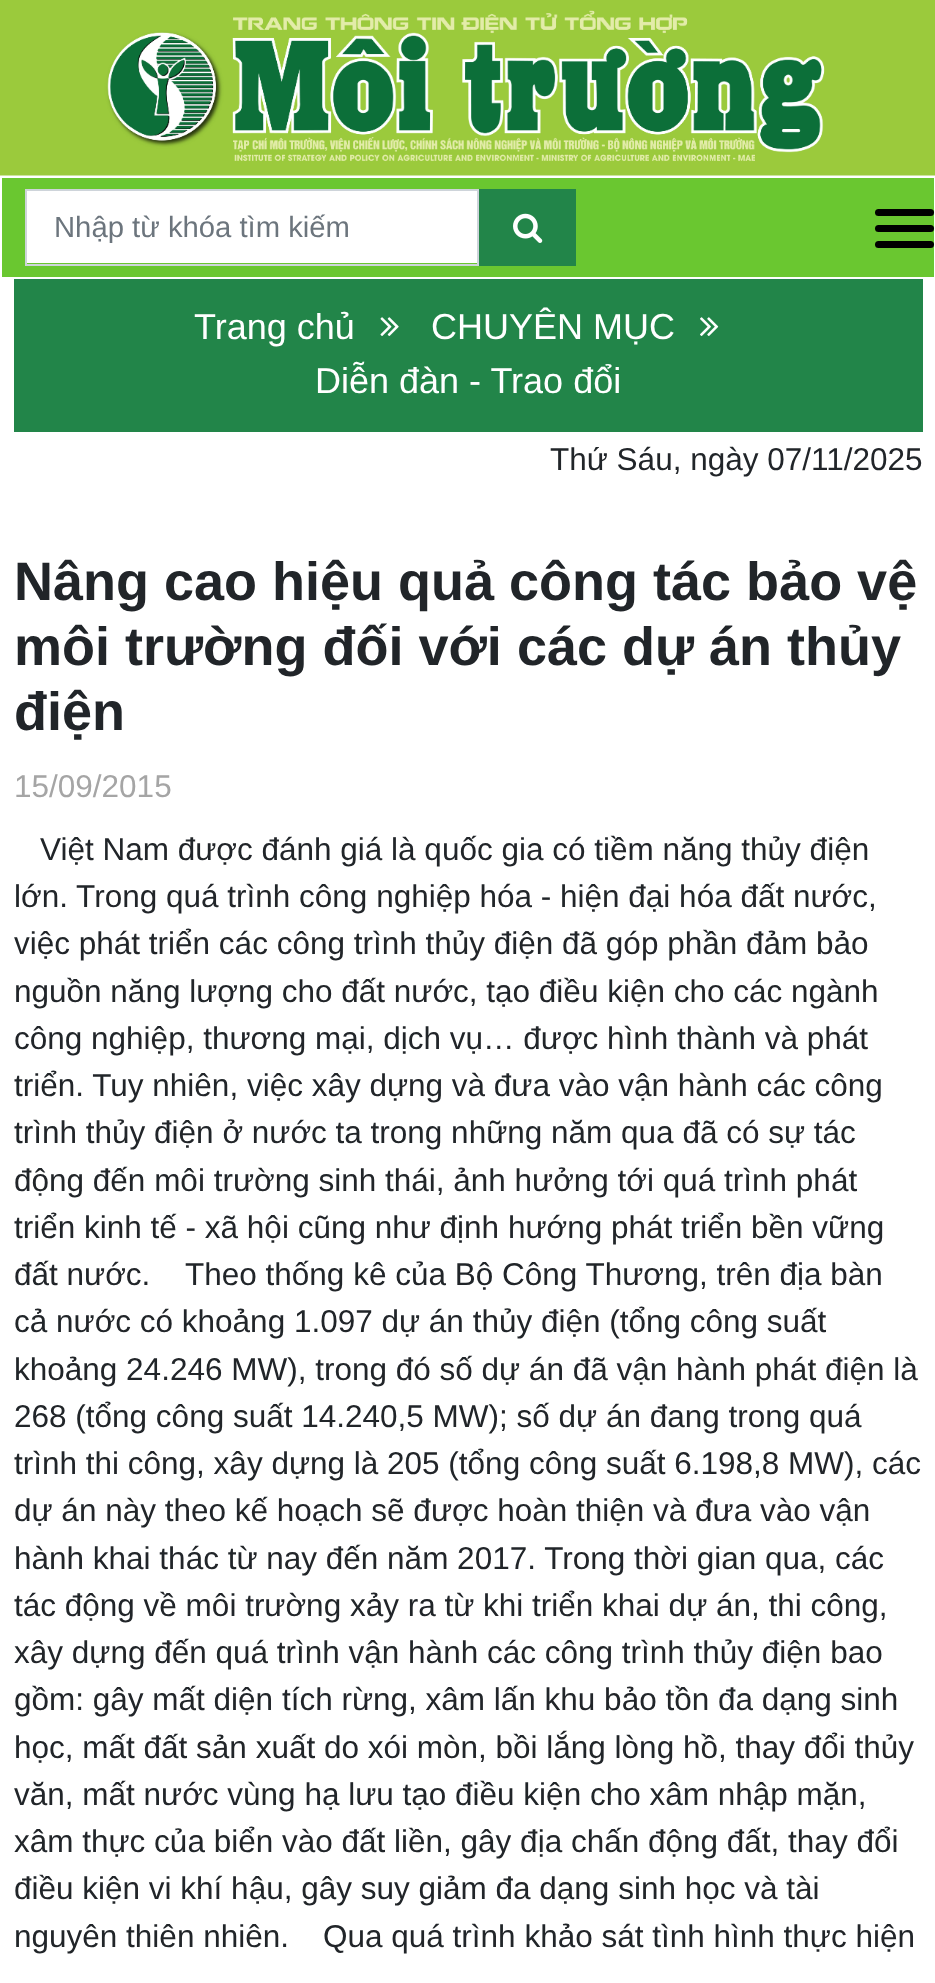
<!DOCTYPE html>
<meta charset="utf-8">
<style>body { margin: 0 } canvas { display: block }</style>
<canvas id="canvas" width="935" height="1983"></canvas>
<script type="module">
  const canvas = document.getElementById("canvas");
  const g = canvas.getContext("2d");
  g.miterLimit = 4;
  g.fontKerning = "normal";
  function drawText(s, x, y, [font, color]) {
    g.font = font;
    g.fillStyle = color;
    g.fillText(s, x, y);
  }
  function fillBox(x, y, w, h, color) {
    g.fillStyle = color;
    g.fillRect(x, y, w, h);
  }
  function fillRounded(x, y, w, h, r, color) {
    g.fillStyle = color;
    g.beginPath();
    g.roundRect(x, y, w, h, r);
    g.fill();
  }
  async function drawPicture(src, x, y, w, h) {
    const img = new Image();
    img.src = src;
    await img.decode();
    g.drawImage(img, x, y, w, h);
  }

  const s1 = ["29.25px Liberation Sans", "#6C757D"];
  const s2 = ["36px Liberation Sans", "#FFFFFF"];
  const s3 = ["31.5px Liberation Sans", "#212529"];
  const s4 = ["bold 54px Liberation Sans", "#212529"];
  const s5 = ["31.5px Liberation Sans", "#A5A5A5"];

  fillBox(0, 0, 935, 1983, "#FFFFFF");
  await drawPicture("pic1.png", 0, 0, 935, 176);
  fillBox(2, 178, 932, 99, "#6AC730");
  fillBox(27, 191, 450, 72, "#FFFFFF");
  g.strokeStyle = "#CED4DA";
  g.lineWidth = 2;
  g.strokeRect(26, 190, 452, 75);
  drawText("Nhập từ khóa tìm kiếm", 54, 237, s1);
  fillBox(479, 189, 97, 77, "#228549");
  await drawPicture("pic2.png", 513, 213, 30, 30);
  fillRounded(875, 225, 59, 7, 3.5, "#000000");
  fillRounded(875, 209, 59, 7, 3.5, "#000000");
  fillRounded(875, 241, 59, 7, 3.5, "#000000");
  fillBox(14, 279, 909, 153, "#228549");
  drawText("Trang chủ", 194, 339, s2);
  await drawPicture("pic3.png", 380, 317, 19, 19);
  drawText("CHUYÊN MỤC", 431, 339, s2);
  await drawPicture("pic4.png", 700, 317, 19, 19);
  drawText("Diễn đàn - Trao đổi", 315, 393, s2);
  drawText("Thứ Sáu, ngày 07/11/2025", 550, 470, s3);
  drawText("Nâng cao hiệu quả công tác bảo vệ", 14, 600, s4);
  drawText("môi trường đối với các dự án thủy", 14, 665, s4);
  drawText("điện", 14, 730, s4);
  drawText("15/09/2015", 14, 797, s5);
  drawText("Việt Nam được đánh giá là quốc gia có tiềm năng thủy điện", 40, 860, s3);
  drawText("lớn. Trong quá trình công nghiệp hóa - hiện đại hóa đất nước,", 14, 907, s3);
  drawText("việc phát triển các công trình thủy điện đã góp phần đảm bảo", 14, 954, s3);
  drawText("nguồn năng lượng cho đất nước, tạo điều kiện cho các ngành", 14, 1002, s3);
  drawText("công nghiệp, thương mại, dịch vụ… được hình thành và phát", 14, 1049, s3);
  drawText("triển. Tuy nhiên, việc xây dựng và đưa vào vận hành các công", 14, 1096, s3);
  drawText("trình thủy điện ở nước ta trong những năm qua đã có sự tác", 14, 1143, s3);
  drawText("động đến môi trường sinh thái, ảnh hưởng tới quá trình phát", 14, 1191, s3);
  drawText("triển kinh tế - xã hội cũng như định hướng phát triển bền vững", 14, 1238, s3);
  drawText("đất nước.", 14, 1285, s3);
  drawText("Theo thống kê của Bộ Công Thương, trên địa bàn", 185, 1285, s3);
  drawText("cả nước có khoảng 1.097 dự án thủy điện (tổng công suất", 14, 1332, s3);
  drawText("khoảng 24.246 MW), trong đó số dự án đã vận hành phát điện là", 14, 1380, s3);
  drawText("268 (tổng công suất 14.240,5 MW); số dự án đang trong quá", 14, 1427, s3);
  drawText("trình thi công, xây dựng là 205 (tổng công suất 6.198,8 MW), các", 14, 1474, s3);
  drawText("dự án này theo kế hoạch sẽ được hoàn thiện và đưa vào vận", 14, 1521, s3);
  drawText("hành khai thác từ nay đến năm 2017. Trong thời gian qua, các", 14, 1569, s3);
  drawText("tác động về môi trường xảy ra từ khi triển khai dự án, thi công,", 14, 1616, s3);
  drawText("xây dựng đến quá trình vận hành các công trình thủy điện bao", 14, 1663, s3);
  drawText("gồm: gây mất diện tích rừng, xâm lấn khu bảo tồn đa dạng sinh", 14, 1710, s3);
  drawText("học, mất đất sản xuất do xói mòn, bồi lắng lòng hồ, thay đổi thủy", 14, 1758, s3);
  drawText("văn, mất nước vùng hạ lưu tạo điều kiện cho xâm nhập mặn,", 14, 1805, s3);
  drawText("xâm thực của biển vào đất liền, gây địa chấn động đất, thay đổi", 14, 1852, s3);
  drawText("điều kiện vi khí hậu, gây suy giảm đa dạng sinh học và tài", 14, 1899, s3);
  drawText("nguyên thiên nhiên.", 14, 1947, s3);
  drawText("Qua quá trình khảo sát tình hình thực hiện", 323, 1947, s3);
</script>
